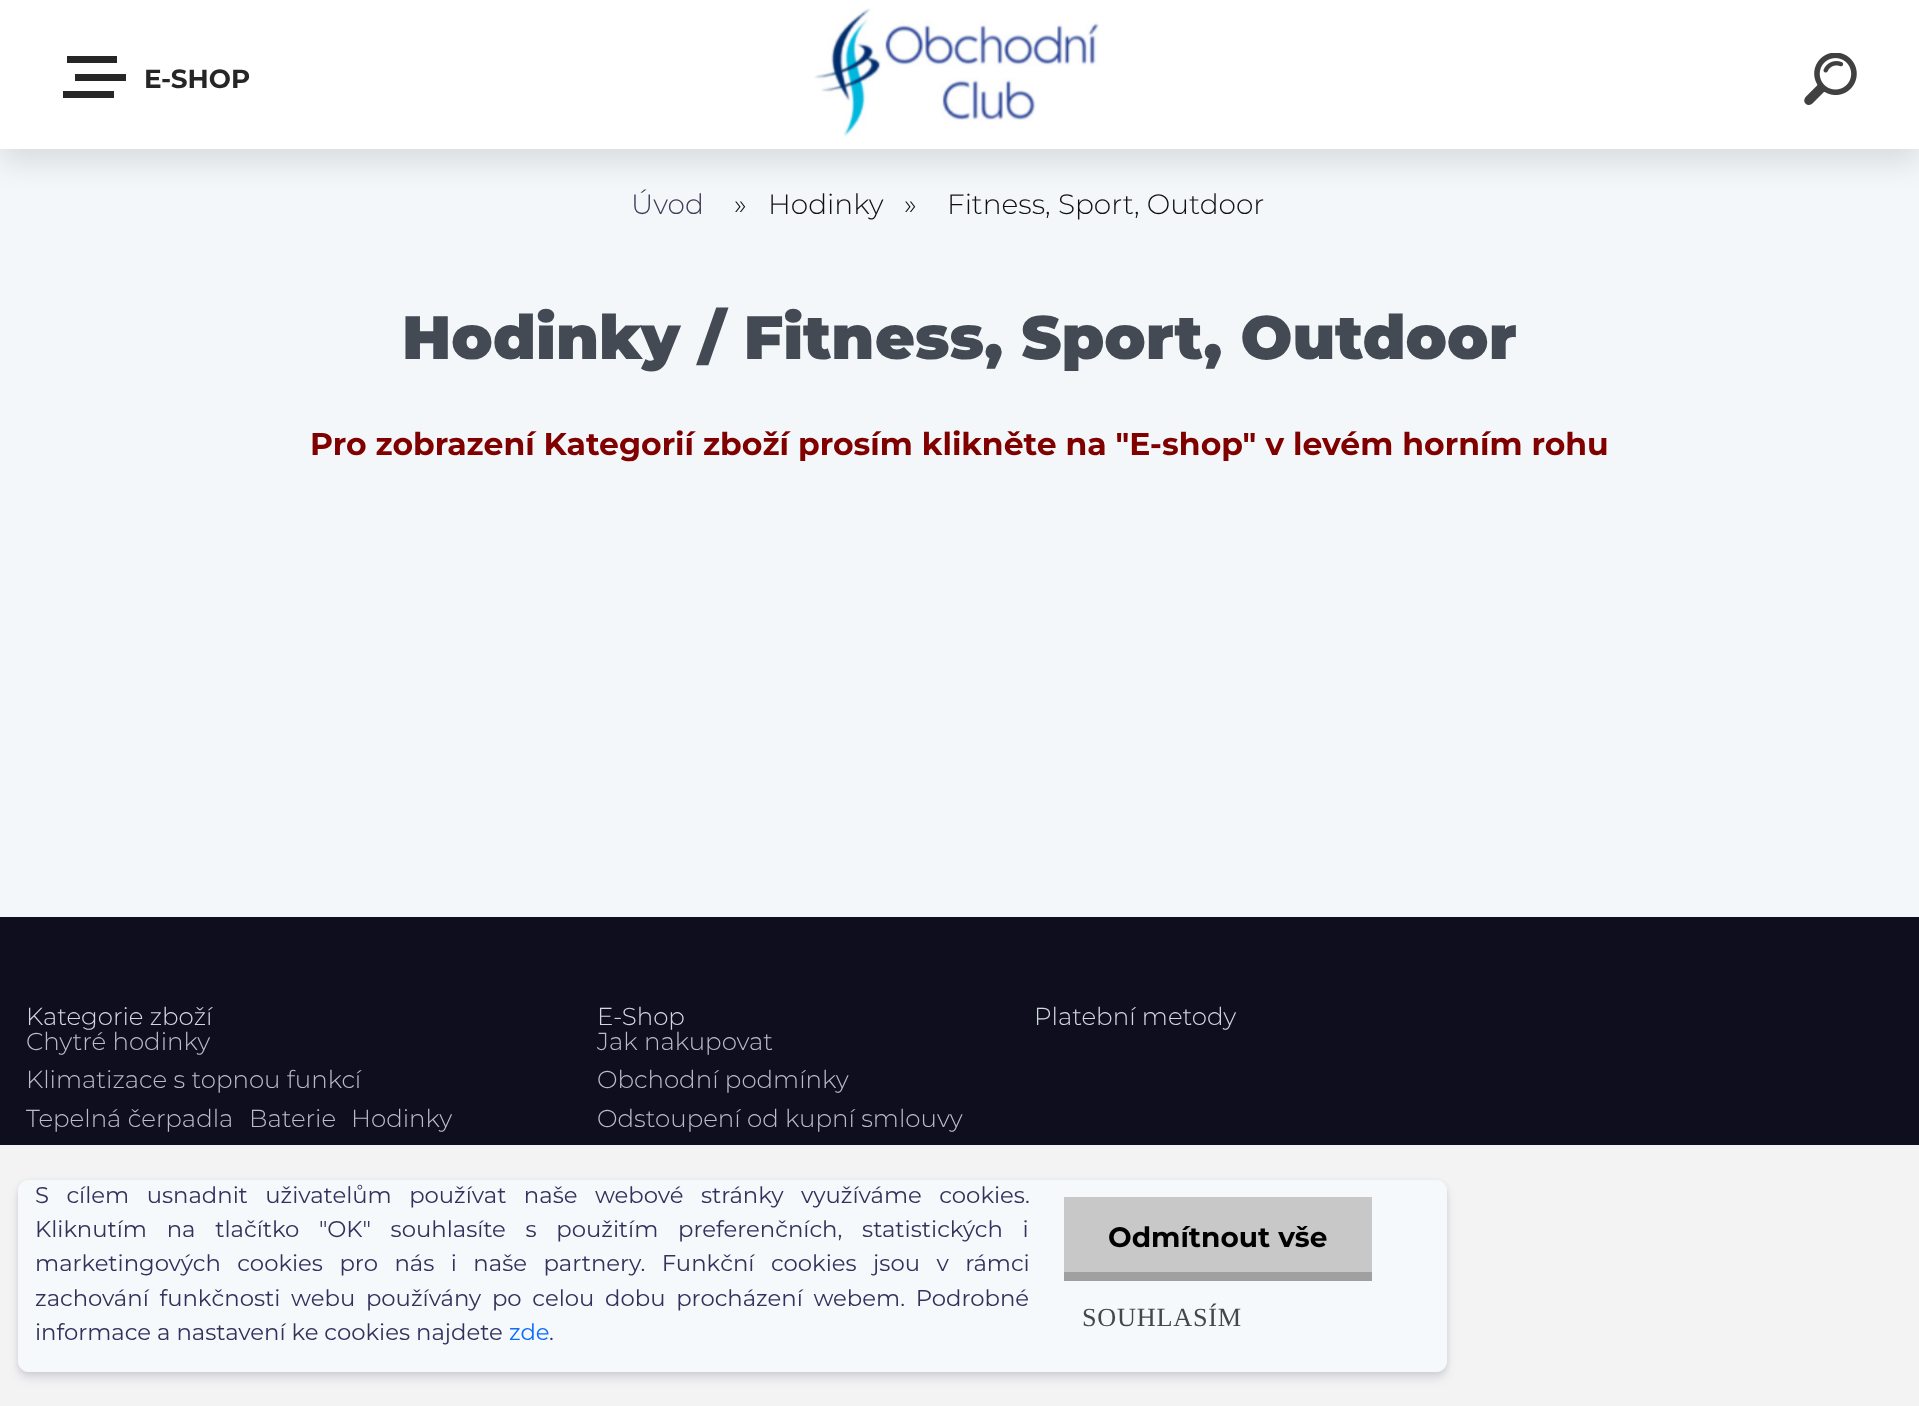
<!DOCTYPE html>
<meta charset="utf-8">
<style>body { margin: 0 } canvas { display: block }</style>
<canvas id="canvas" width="1919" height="1406"></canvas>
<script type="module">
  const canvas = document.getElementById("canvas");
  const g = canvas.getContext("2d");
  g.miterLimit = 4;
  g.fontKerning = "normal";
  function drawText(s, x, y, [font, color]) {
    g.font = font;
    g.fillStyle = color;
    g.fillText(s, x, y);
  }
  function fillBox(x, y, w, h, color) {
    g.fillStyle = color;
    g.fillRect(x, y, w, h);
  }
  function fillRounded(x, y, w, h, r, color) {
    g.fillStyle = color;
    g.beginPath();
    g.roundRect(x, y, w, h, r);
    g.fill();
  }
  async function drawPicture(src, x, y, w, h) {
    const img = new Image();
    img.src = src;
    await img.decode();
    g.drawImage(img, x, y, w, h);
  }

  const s1 = ["bold 26.25px Montserrat", "#262626"];
  const s2 = ["300 28px Montserrat", "#3F3D59"];
  const s3 = ["300 28px Montserrat", "#101010"];
  const s4 = ["900 61.25px Montserrat", "#434A54"];
  const s5 = ["bold 31.5px Montserrat", "#800000"];
  const s6 = ["300 24.5px Montserrat", "#D2D8E0"];
  const s7 = ["300 24.5px Montserrat", "#B9BDC7"];
  const s8 = ["22.75px Montserrat", "#32325D"];
  const s9 = ["22.75px Montserrat", "#0D6EFD"];
  const s10 = ["bold 28px Montserrat", "#000000"];
  const s11 = ["26.25px Liberation Serif", "#43484D"];

  fillBox(0, 0, 1919, 1406, "#0E0E1E");
  fillBox(0, 149, 1919, 768, "#F4F7F9");
  g.fillStyle = "rgba(0, 0, 0, 0.1)";
  g.filter = "blur(14px)";
  g.beginPath();
  g.rect(0, 14, 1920, 149);
  g.fill();
  g.filter = "none";
  fillBox(0, 0, 1919, 149, "#FFFFFF");
  fillBox(67, 56, 50, 7, "#262626");
  fillBox(75, 74, 51, 7, "#262626");
  fillBox(63, 91, 51, 7, "#262626");
  drawText("E-SHOP", 144, 88, s1);
  await drawPicture("pic1.png", 814, 8, 285, 129);
  await drawPicture("pic2.png", 1804, 53, 53, 52);
  drawText("Úvod", 631, 214, s2);
  drawText("»", 734, 214, s3);
  drawText("Hodinky", 768, 214, s3);
  drawText("»", 904, 214, s3);
  drawText("Fitness, Sport, Outdoor", 947, 214, s3);
  drawText("Hodinky / Fitness, Sport, Outdoor", 402, 359, s4);
  drawText("Pro zobrazení Kategorií zboží prosím klikněte na \"E-shop\" v levém horním rohu", 310, 455, s5);
  fillBox(0, 1145, 1919, 261, "#F3F3F4");
  drawText("Kategorie zboží", 26, 1025, s6);
  drawText("Chytré hodinky", 26, 1050, s7);
  drawText("Klimatizace s topnou funkcí", 26, 1088, s7);
  drawText("Tepelná čerpadla", 26, 1127, s7);
  drawText("Baterie", 249, 1127, s7);
  drawText("Hodinky", 351, 1127, s7);
  drawText("E-Shop", 597, 1025, s6);
  drawText("Jak nakupovat", 597, 1050, s7);
  drawText("Obchodní podmínky", 597, 1088, s7);
  drawText("Odstoupení od kupní smlouvy", 597, 1127, s7);
  drawText("Platební metody", 1034, 1025, s6);
  g.save();
  g.beginPath();
  g.moveTo(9, 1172);
  g.lineTo(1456, 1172);
  g.lineTo(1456, 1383);
  g.lineTo(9, 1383);
  g.closePath();
  g.moveTo(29, 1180);
  g.lineTo(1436, 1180);
  g.bezierCurveTo(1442, 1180, 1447, 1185, 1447, 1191);
  g.lineTo(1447, 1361);
  g.bezierCurveTo(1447, 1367, 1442, 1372, 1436, 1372);
  g.lineTo(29, 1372);
  g.bezierCurveTo(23, 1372, 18, 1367, 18, 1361);
  g.lineTo(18, 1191);
  g.bezierCurveTo(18, 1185, 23, 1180, 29, 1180);
  g.closePath();
  g.clip("evenodd");
  g.fillStyle = "rgba(0, 0, 0, 0.08)";
  g.filter = "blur(2.5px)";
  g.beginPath();
  g.roundRect(18, 1181, 1429, 193, 11);
  g.fill();
  g.filter = "none";
  g.restore();
  g.save();
  g.beginPath();
  g.moveTo(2, 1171);
  g.lineTo(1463, 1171);
  g.lineTo(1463, 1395);
  g.lineTo(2, 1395);
  g.closePath();
  g.moveTo(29, 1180);
  g.lineTo(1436, 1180);
  g.bezierCurveTo(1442, 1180, 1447, 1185, 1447, 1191);
  g.lineTo(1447, 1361);
  g.bezierCurveTo(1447, 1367, 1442, 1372, 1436, 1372);
  g.lineTo(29, 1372);
  g.bezierCurveTo(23, 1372, 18, 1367, 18, 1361);
  g.lineTo(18, 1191);
  g.bezierCurveTo(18, 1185, 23, 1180, 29, 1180);
  g.closePath();
  g.clip("evenodd");
  g.fillStyle = "rgba(50, 50, 93, 0.11)";
  g.filter = "blur(5px)";
  g.beginPath();
  g.roundRect(18, 1187, 1429, 192, 11);
  g.fill();
  g.filter = "none";
  g.restore();
  fillRounded(18, 1180, 1429, 192, 11, "rgba(246, 249, 252, 0.9)");
  g.wordSpacing = "11.5px";
  drawText("S cílem usnadnit uživatelům používat naše webové stránky využíváme cookies.", 35, 1203, s8);
  g.wordSpacing = "13.75px";
  drawText("Kliknutím na tlačítko \"OK\" souhlasíte s použitím preferenčních, statistických i", 35, 1237, s8);
  g.wordSpacing = "10.5px";
  drawText("marketingových cookies pro nás i naše partnery. Funkční cookies jsou v rámci", 35, 1271, s8);
  g.wordSpacing = "4.75px";
  drawText("zachování funkčnosti webu používány po celou dobu procházení webem. Podrobné", 35, 1306, s8);
  g.wordSpacing = "0px";
  drawText("informace a nastavení ke cookies najdete", 35, 1340, s8);
  drawText("zde", 509, 1340, s9);
  drawText(".", 549, 1340, s8);
  fillBox(1064, 1197, 308, 75, "#C8C8C8");
  fillBox(1064, 1272, 308, 9, "#A0A0A0");
  drawText("Odmítnout vše", 1108, 1247, s10);
  g.letterSpacing = "0.75px";
  drawText("SOUHLASÍM", 1082, 1326, s11);
</script>
